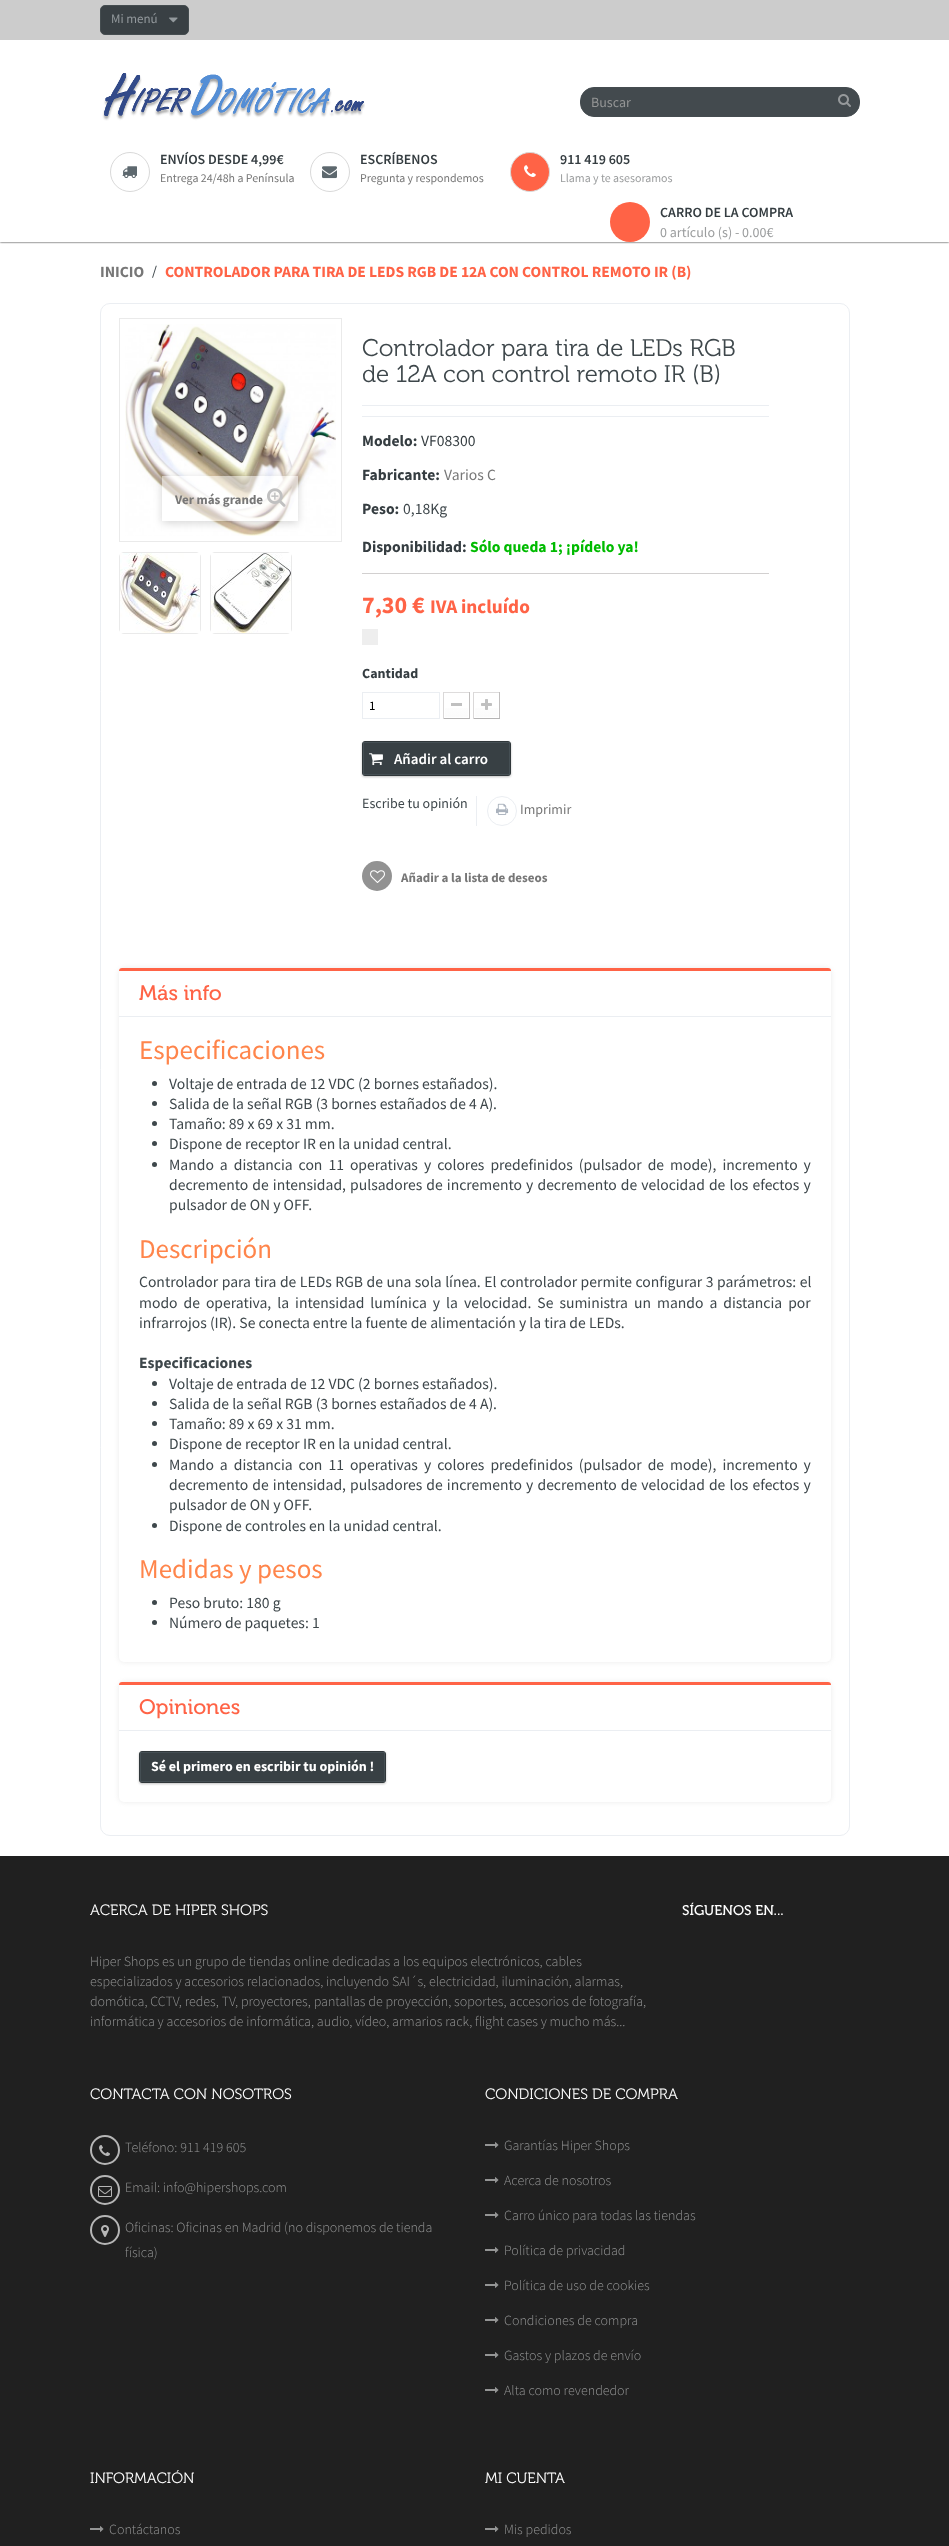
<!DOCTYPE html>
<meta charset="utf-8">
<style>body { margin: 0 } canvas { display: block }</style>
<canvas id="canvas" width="949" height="2546"></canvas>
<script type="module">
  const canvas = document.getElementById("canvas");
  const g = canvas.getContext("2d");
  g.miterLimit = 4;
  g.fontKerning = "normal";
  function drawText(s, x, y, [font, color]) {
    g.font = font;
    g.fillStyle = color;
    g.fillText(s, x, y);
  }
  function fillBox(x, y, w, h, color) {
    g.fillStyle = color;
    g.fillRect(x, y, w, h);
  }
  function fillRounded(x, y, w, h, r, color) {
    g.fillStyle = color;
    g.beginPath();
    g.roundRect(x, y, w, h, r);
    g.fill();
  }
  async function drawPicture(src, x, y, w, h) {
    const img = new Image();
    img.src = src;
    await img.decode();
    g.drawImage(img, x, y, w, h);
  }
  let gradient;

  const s1 = ["13px Source Sans Pro", "#93999D"];
  const s2 = ["14px Source Sans Pro", "#949595"];
  const s3 = ["600 14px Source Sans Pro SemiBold", "#353D41"];
  const s4 = ["11.9px Source Sans Pro", "#777777"];
  const s5 = ["11.9px Source Sans Pro", "#9B9D9E"];
  const s6 = ["14px Source Sans Pro", "#9B9D9E"];
  const s7 = ["bold 15.6px Source Sans Pro", "#777777"];
  const s8 = ["15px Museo", "#3E474B"];
  const s9 = ["bold 15.6px Source Sans Pro", "#FF6346"];
  const s10 = ["bold 13px Source Sans Pro", "#777777"];
  const s11 = ["24px Museo", "#3E474B"];
  const s12 = ["bold 15.6px Source Sans Pro", "#353D41"];
  const s13 = ["15.6px Source Sans Pro", "#353D41"];
  const s14 = ["15.6px Source Sans Pro", "#777777"];
  const s15 = ["15.6px Source Sans Pro", "#3E474B"];
  const s16 = ["bold 15.6px Source Sans Pro", "#00BB00"];
  const s17 = ["bold 24px Source Sans Pro", "#FF6346"];
  const s18 = ["bold 19.25px Source Sans Pro", "#FF6346"];
  const s19 = ["bold 14px Source Sans Pro", "#353D41"];
  const s20 = ["13px Source Sans Pro", "#000000"];
  const s21 = ["600 15px Source Sans Pro SemiBold", "#FFFFFF"];
  const s22 = ["14px Source Sans Pro", "#3E474B"];
  const s23 = ["14px Source Sans Pro", "#777777"];
  const s24 = ["21px 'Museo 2'", "#FF6346"];
  const s25 = ["27px Source Sans Pro", "#FF854B"];
  const s26 = ["bold 15.6px Source Sans Pro", "#3E474B"];
  const s27 = ["bold 14px Source Sans Pro", "#FFFFFF"];
  const s28 = ["15px Museo", "#FFFFFF"];
  const s29 = ["300 14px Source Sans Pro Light", "#949595"];
  const s30 = ["14px 'Museo 2'", "#FFFFFF"];

  fillBox(0, 0, 949, 2546, "#FFFFFF");
  g.save();
  g.beginPath();
  g.rect(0, 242, 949, 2);
  g.clip();
  g.fillStyle = "#121212";
  g.filter = "blur(1px)";
  g.beginPath();
  g.rect(0, 0, 949, 242);
  g.fill();
  g.filter = "none";
  g.restore();
  fillBox(0, 0, 949, 40, "#CCCCCC");
  g.fillStyle = "#394044";
  g.beginPath();
  g.roundRect(100.5, 5.5, 88, 29, 4.5);
  g.fill();
  g.strokeStyle = "#454D50";
  g.stroke();
  drawText("Mi menú", 111, 23, s1);
  await drawPicture("pic1.png", 169, 17, 9, 6);
  await drawPicture("pic2.png", 102, 73, 263, 48);
  g.fillStyle = "#434A4E";
  g.beginPath();
  g.roundRect(580.5, 87.5, 279, 29, 13.5);
  g.fill();
  g.strokeStyle = "#454C50";
  g.stroke();
  drawText("Buscar", 591, 107, s2);
  await drawPicture("pic3.png", 838, 94, 13, 13);
  g.beginPath();
  g.arc(130, 172, 19.5, 0, Math.PI * 2);
  g.strokeStyle = "#D9D9D9";
  g.stroke();
  await drawPicture("pic4.png", 122, 166, 15, 12);
  drawText("ENVÍOS DESDE 4,99€", 160, 164, s3);
  drawText("Entrega 24/48h a Península", 160, 182, s4);
  g.beginPath();
  g.arc(330, 172, 19.5, 0, Math.PI * 2);
  g.stroke();
  await drawPicture("pic5.png", 322, 166, 15, 13);
  drawText("ESCRÍBENOS", 360, 164, s3);
  drawText("Pregunta y respondemos", 360, 182, s4);
  g.fillStyle = "#FF6346";
  g.beginPath();
  g.arc(530, 172, 19.5, 0, Math.PI * 2);
  g.fill();
  g.stroke();
  await drawPicture("pic6.png", 524, 165, 12, 12);
  drawText("911 419 605", 560, 164, s3);
  drawText("Llama y te asesoramos", 560, 182, s5);
  g.fillStyle = "#FF6346";
  g.beginPath();
  g.arc(630, 222, 20, 0, Math.PI * 2);
  g.fill();
  drawText("CARRO DE LA COMPRA", 660, 217, s3);
  drawText("0 artículo (s) - 0.00€", 660, 237, s6);
  drawText("INICIO", 100, 277, s7);
  drawText("/", 152, 277, s8);
  drawText("CONTROLADOR PARA TIRA DE LEDS RGB DE 12A CON CONTROL REMOTO IR (B)", 165, 277, s9);
  g.beginPath();
  g.roundRect(100.5, 303.5, 749, 1532, 9.5);
  g.strokeStyle = "#EBEEF2";
  g.stroke();
  g.strokeStyle = "#EAEAEA";
  g.strokeRect(119.5, 318.5, 222, 223);
  await drawPicture("pic7.png", 125, 324, 211, 212);
  g.save();
  g.beginPath();
  g.moveTo(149, 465);
  g.lineTo(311, 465);
  g.lineTo(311, 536);
  g.lineTo(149, 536);
  g.closePath();
  g.moveTo(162, 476);
  g.lineTo(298, 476);
  g.lineTo(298, 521);
  g.lineTo(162, 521);
  g.closePath();
  g.clip("evenodd");
  g.fillStyle = "rgba(0, 0, 0, 0.16)";
  g.filter = "blur(4px)";
  g.beginPath();
  g.rect(162, 478, 136, 45);
  g.fill();
  g.filter = "none";
  g.restore();
  fillBox(162, 476, 136, 45, "rgba(255, 255, 255, 0.5)");
  drawText("Ver más grande", 175, 504, s10);
  await drawPicture("pic8.png", 267, 488, 19, 19);
  g.beginPath();
  g.roundRect(119.5, 552.5, 81, 81, 4.5);
  g.stroke();
  await drawPicture("pic9.png", 120, 553, 80, 80);
  g.beginPath();
  g.roundRect(210.5, 552.5, 81, 81, 4.5);
  g.stroke();
  await drawPicture("pic10.png", 211, 553, 80, 80);
  fillBox(362, 405, 407, 1, "#EBEEF2");
  drawText("Controlador para tira de LEDs RGB", 362, 356, s11);
  drawText("de 12A con control remoto IR (B)", 362, 382, s11);
  fillBox(362, 416, 407, 1, "#EBEEF2");
  drawText("Modelo:", 362, 446, s12);
  drawText("VF08300", 421, 446, s13);
  drawText("Fabricante:", 362, 480, s12);
  drawText("Varios C", 444, 480, s14);
  drawText("Peso:", 362, 514, s12);
  drawText("0,18Kg", 403, 514, s15);
  drawText("Disponibilidad:", 362, 552, s12);
  drawText("Sólo queda 1; ¡pídelo ya!", 470, 552, s16);
  fillBox(362, 573, 407, 1, "#D2D0D0");
  drawText("7,30 €", 362, 613, s17);
  drawText("IVA incluído", 430, 613, s18);
  fillBox(362, 629, 16, 16, "#EEEEEE");
  drawText("Cantidad", 362, 678, s19);
  g.strokeStyle = "#EBEEF2";
  g.strokeRect(362.5, 692.5, 77, 26);
  drawText("1", 369, 710, s20);
  fillBox(443, 692, 27, 1, "#DEDCDC");
  fillBox(469, 692, 1, 27, "#C1BFBF");
  fillBox(443, 718, 27, 1, "#B5B4B4");
  fillBox(443, 692, 1, 27, "#DAD8D8");
  gradient = g.createLinearGradient(457, 694, 457, 717);
  gradient.addColorStop(0, "#FFFFFF");
  gradient.addColorStop(1, "#FBFBFB");
  g.fillStyle = gradient;
  g.fillRect(445, 708, 23, 9);
  fillBox(451, 703, 11, 3, "#C0C0C0");
  fillBox(473, 692, 27, 1, "#DEDCDC");
  fillBox(499, 692, 1, 27, "#C1BFBF");
  fillBox(473, 718, 27, 1, "#B5B4B4");
  fillBox(473, 692, 1, 27, "#DAD8D8");
  gradient = g.createLinearGradient(487, 694, 487, 717);
  gradient.addColorStop(0, "#FFFFFF");
  gradient.addColorStop(1, "#FBFBFB");
  g.fillStyle = gradient;
  g.fillRect(475, 708, 23, 9);
  await drawPicture("pic11.png", 481, 699, 11, 11);
  g.fillStyle = "rgba(0, 0, 0, 0.24)";
  g.filter = "blur(1px)";
  g.beginPath();
  g.roundRect(362, 742, 149, 35, 3);
  g.fill();
  g.filter = "none";
  g.fillStyle = "#384044";
  g.beginPath();
  g.roundRect(362.5, 741.5, 148, 34, 2.5);
  g.fill();
  g.strokeStyle = "#30373A";
  g.stroke();
  g.strokeStyle = "#454F54";
  g.strokeRect(363.5, 742.5, 146, 32);
  await drawPicture("pic12.png", 369, 753, 14, 13);
  drawText("Añadir al carro", 394, 764, s21);
  drawText("Escribe tu opinión", 362, 808, s22);
  fillBox(476, 796, 1, 30, "#EBEEF2");
  g.beginPath();
  g.arc(502, 811, 14.5, 0, Math.PI * 2);
  g.strokeStyle = "#EBEEF2";
  g.stroke();
  await drawPicture("pic13.png", 496, 803, 13, 12);
  drawText("Imprimir", 520, 814, s23);
  g.fillStyle = "#929292";
  g.beginPath();
  g.arc(377, 876, 15, 0, Math.PI * 2);
  g.fill();
  await drawPicture("pic14.png", 370, 870, 15, 13);
  drawText("Añadir a la lista de deseos", 401, 882, s10);
  g.fillStyle = "rgba(165, 165, 165, 0.24)";
  g.filter = "blur(2.5px)";
  g.beginPath();
  g.roundRect(119, 968, 712, 694, 5);
  g.fill();
  g.filter = "none";
  fillRounded(119, 968, 712, 694, 5, "#FFFFFF");
  g.fillStyle = "#FF6346";
  g.beginPath();
  g.moveTo(122, 968);
  g.bezierCurveTo(120, 968, 119, 969, 119, 971);
  g.lineTo(831, 971);
  g.bezierCurveTo(831, 969, 830, 968, 828, 968);
  g.closePath();
  g.fill();
  fillBox(119, 1016, 712, 1, "#EBEEF2");
  drawText("Más info", 139, 1000, s24);
  drawText("Especificaciones", 139, 1059, s25);
  g.fillStyle = "#3E474B";
  g.beginPath();
  g.arc(154.5, 1083.5, 2.5, 0, Math.PI * 2);
  g.fill();
  drawText("Voltaje de entrada de 12 VDC (2 bornes estañados).", 169, 1089, s15);
  g.beginPath();
  g.arc(154.5, 1103.5, 2.5, 0, Math.PI * 2);
  g.fill();
  drawText("Salida de la señal RGB (3 bornes estañados de 4 A).", 169, 1109, s15);
  g.beginPath();
  g.arc(154.5, 1123.5, 2.5, 0, Math.PI * 2);
  g.fill();
  drawText("Tamaño: 89 x 69 x 31 mm.", 169, 1129, s15);
  g.beginPath();
  g.arc(154.5, 1143.5, 2.5, 0, Math.PI * 2);
  g.fill();
  drawText("Dispone de receptor IR en la unidad central.", 169, 1149, s15);
  g.beginPath();
  g.arc(154.5, 1164.5, 2.5, 0, Math.PI * 2);
  g.fill();
  g.wordSpacing = "2.9px";
  drawText("Mando a distancia con 11 operativas y colores predefinidos (pulsador de mode), incremento y", 169, 1170, s15);
  g.wordSpacing = "1px";
  drawText("decremento de intensidad, pulsadores de incremento y decremento de velocidad de los efectos y", 169, 1190, s15);
  g.wordSpacing = "0px";
  drawText("pulsador de ON y OFF.", 169, 1210, s15);
  drawText("Descripción", 139, 1258, s25);
  g.wordSpacing = "0.4px";
  drawText("Controlador para tira de LEDs RGB de una sola línea. El controlador permite configurar 3 parámetros: el", 139, 1287, s15);
  g.wordSpacing = "2.9px";
  drawText("modo de operativa, la intensidad lumínica y la velocidad. Se suministra un mando a distancia por", 139, 1308, s15);
  g.wordSpacing = "0px";
  drawText("infrarrojos (IR). Se conecta entre la fuente de alimentación y la tira de LEDs.", 139, 1328, s15);
  drawText("Especificaciones", 139, 1368, s26);
  g.beginPath();
  g.arc(154.5, 1383.5, 2.5, 0, Math.PI * 2);
  g.fill();
  drawText("Voltaje de entrada de 12 VDC (2 bornes estañados).", 169, 1389, s15);
  g.beginPath();
  g.arc(154.5, 1403.5, 2.5, 0, Math.PI * 2);
  g.fill();
  drawText("Salida de la señal RGB (3 bornes estañados de 4 A).", 169, 1409, s15);
  g.beginPath();
  g.arc(154.5, 1423.5, 2.5, 0, Math.PI * 2);
  g.fill();
  drawText("Tamaño: 89 x 69 x 31 mm.", 169, 1429, s15);
  g.beginPath();
  g.arc(154.5, 1443.5, 2.5, 0, Math.PI * 2);
  g.fill();
  drawText("Dispone de receptor IR en la unidad central.", 169, 1449, s15);
  g.beginPath();
  g.arc(154.5, 1464.5, 2.5, 0, Math.PI * 2);
  g.fill();
  g.wordSpacing = "2.9px";
  drawText("Mando a distancia con 11 operativas y colores predefinidos (pulsador de mode), incremento y", 169, 1470, s15);
  g.wordSpacing = "1px";
  drawText("decremento de intensidad, pulsadores de incremento y decremento de velocidad de los efectos y", 169, 1490, s15);
  g.wordSpacing = "0px";
  drawText("pulsador de ON y OFF.", 169, 1510, s15);
  g.beginPath();
  g.arc(154.5, 1525.5, 2.5, 0, Math.PI * 2);
  g.fill();
  drawText("Dispone de controles en la unidad central.", 169, 1531, s15);
  drawText("Medidas y pesos", 139, 1578, s25);
  g.fillStyle = "#3E474B";
  g.beginPath();
  g.arc(154.5, 1602.5, 2.5, 0, Math.PI * 2);
  g.fill();
  drawText("Peso bruto: 180 g", 169, 1608, s15);
  g.beginPath();
  g.arc(154.5, 1622.5, 2.5, 0, Math.PI * 2);
  g.fill();
  drawText("Número de paquetes: 1", 169, 1628, s15);
  g.fillStyle = "rgba(165, 165, 165, 0.24)";
  g.filter = "blur(2.5px)";
  g.beginPath();
  g.roundRect(119, 1682, 712, 120, 5);
  g.fill();
  g.filter = "none";
  fillRounded(119, 1682, 712, 120, 5, "#FFFFFF");
  g.fillStyle = "#FF6346";
  g.beginPath();
  g.moveTo(122, 1682);
  g.bezierCurveTo(120, 1682, 119, 1683, 119, 1685);
  g.lineTo(831, 1685);
  g.bezierCurveTo(831, 1683, 830, 1682, 828, 1682);
  g.closePath();
  g.fill();
  fillBox(119, 1730, 712, 1, "#EBEEF2");
  drawText("Opiniones", 139, 1714, s24);
  g.fillStyle = "rgba(0, 0, 0, 0.24)";
  g.filter = "blur(1px)";
  g.beginPath();
  g.roundRect(139, 1752, 247, 32, 3);
  g.fill();
  g.filter = "none";
  g.fillStyle = "#384044";
  g.beginPath();
  g.roundRect(139.5, 1751.5, 246, 31, 2.5);
  g.fill();
  g.strokeStyle = "#30373A";
  g.stroke();
  g.strokeStyle = "#454F54";
  g.strokeRect(140.5, 1752.5, 244, 29);
  drawText("Sé el primero en escribir tu opinión !", 151, 1771, s27);
  fillBox(0, 1856, 949, 690, "#202020");
  drawText("ACERCA DE HIPER SHOPS", 90, 1915, s28);
  drawText("Hiper Shops es un grupo de tiendas online dedicadas a los equipos electrónicos, cables", 90, 1966, s29);
  drawText("especializados y accesorios relacionados, incluyendo SAI´s, electricidad, iluminación, alarmas,", 90, 1986, s29);
  drawText("domótica, CCTV, redes, TV, proyectores, pantallas de proyección, soportes, accesorios de fotografía,", 90, 2006, s29);
  drawText("informática y accesorios de informática, audio, vídeo, armarios rack, flight cases y mucho más...", 90, 2026, s29);
  drawText("SÍGUENOS EN...", 682, 1915, s30);
  drawText("CONTACTA CON NOSOTROS", 90, 2099, s28);
  g.beginPath();
  g.arc(105, 2150, 14, 0, Math.PI * 2);
  g.strokeStyle = "#B6B6B6";
  g.lineWidth = 2;
  g.stroke();
  await drawPicture("pic15.png", 99, 2145, 11, 11);
  drawText("Teléfono: 911 419 605", 125, 2152, s29);
  g.beginPath();
  g.arc(105, 2190, 14, 0, Math.PI * 2);
  g.stroke();
  await drawPicture("pic16.png", 98, 2186, 14, 11);
  drawText("Email: info@hipershops.com", 125, 2192, s29);
  g.beginPath();
  g.arc(105, 2230, 14, 0, Math.PI * 2);
  g.stroke();
  await drawPicture("pic17.png", 101, 2225, 8, 12);
  drawText("Oficinas: Oficinas en Madrid (no disponemos de tienda", 125, 2232, s29);
  drawText("física)", 125, 2257, s29);
  drawText("CONDICIONES DE COMPRA", 485, 2099, s28);
  await drawPicture("pic18.png", 485, 2142, 14, 6);
  drawText("Garantías Hiper Shops", 504, 2150, s29);
  await drawPicture("pic18.png", 485, 2177, 14, 6);
  drawText("Acerca de nosotros", 504, 2185, s29);
  await drawPicture("pic18.png", 485, 2212, 14, 6);
  drawText("Carro único para todas las tiendas", 504, 2220, s29);
  await drawPicture("pic18.png", 485, 2247, 14, 6);
  drawText("Política de privacidad", 504, 2255, s29);
  await drawPicture("pic18.png", 485, 2282, 14, 6);
  drawText("Política de uso de cookies", 504, 2290, s29);
  await drawPicture("pic18.png", 485, 2317, 14, 6);
  drawText("Condiciones de compra", 504, 2325, s29);
  await drawPicture("pic18.png", 485, 2352, 14, 6);
  drawText("Gastos y plazos de envío", 504, 2360, s29);
  await drawPicture("pic18.png", 485, 2387, 14, 6);
  drawText("Alta como revendedor", 504, 2395, s29);
  drawText("INFORMACIÓN", 90, 2483, s28);
  await drawPicture("pic18.png", 90, 2526, 14, 6);
  drawText("Contáctanos", 109, 2534, s29);
  drawText("MI CUENTA", 485, 2483, s28);
  await drawPicture("pic18.png", 485, 2526, 14, 6);
  drawText("Mis pedidos", 504, 2534, s29);
</script>
